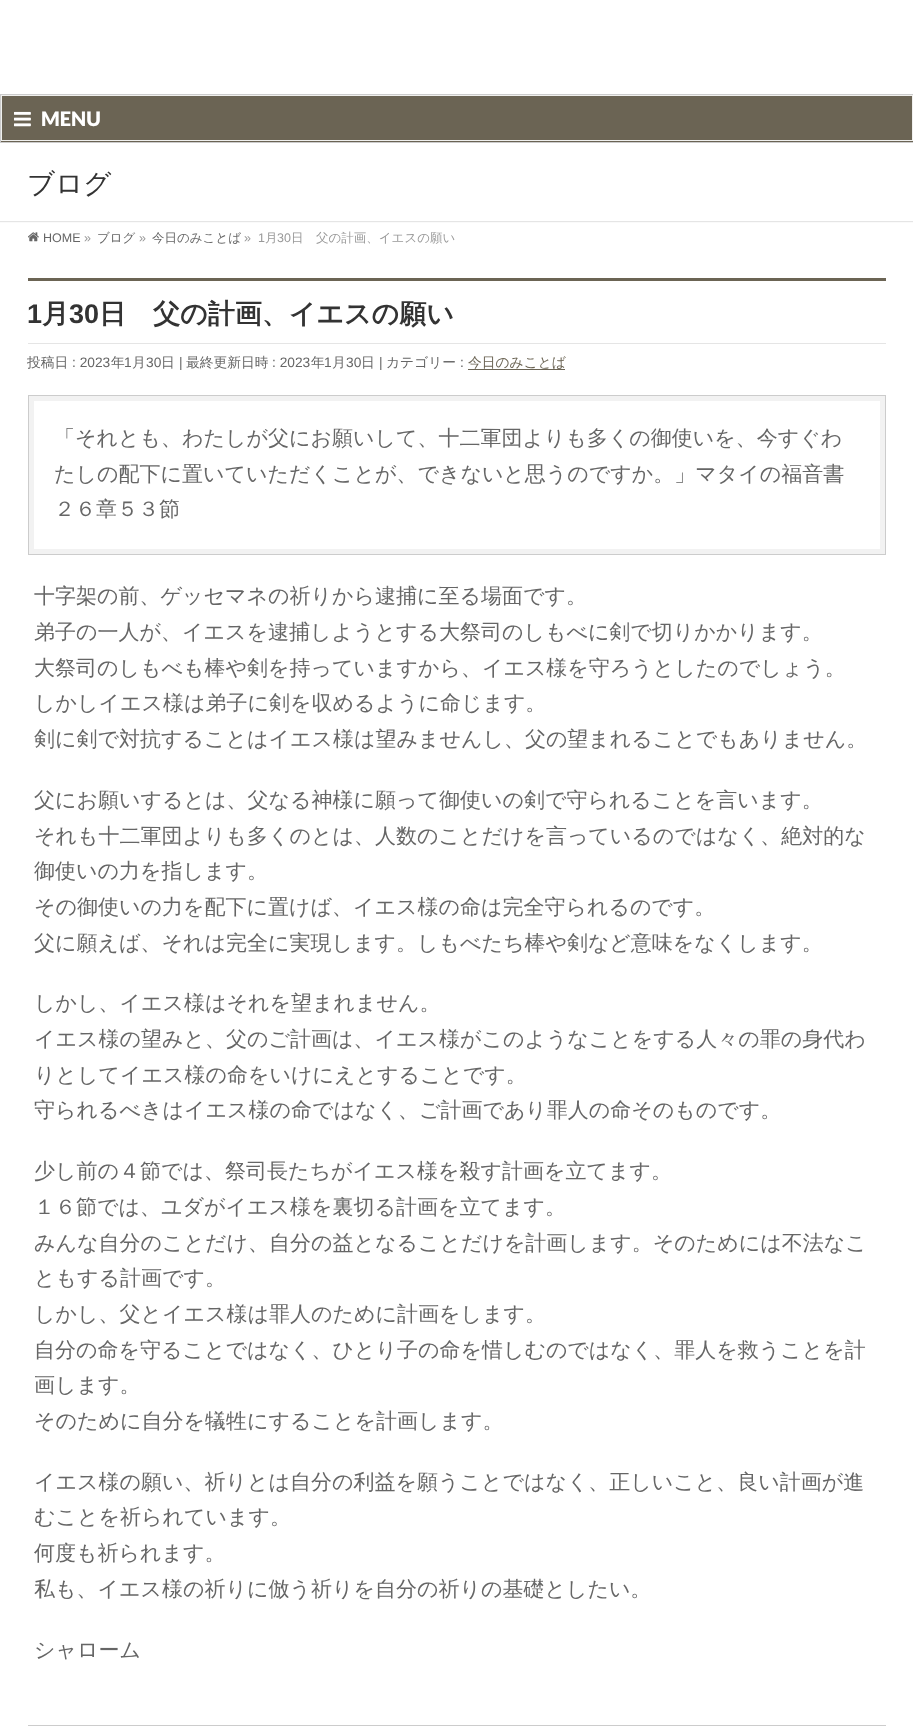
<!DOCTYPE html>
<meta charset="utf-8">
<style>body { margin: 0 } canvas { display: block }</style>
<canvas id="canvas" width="913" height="1730"></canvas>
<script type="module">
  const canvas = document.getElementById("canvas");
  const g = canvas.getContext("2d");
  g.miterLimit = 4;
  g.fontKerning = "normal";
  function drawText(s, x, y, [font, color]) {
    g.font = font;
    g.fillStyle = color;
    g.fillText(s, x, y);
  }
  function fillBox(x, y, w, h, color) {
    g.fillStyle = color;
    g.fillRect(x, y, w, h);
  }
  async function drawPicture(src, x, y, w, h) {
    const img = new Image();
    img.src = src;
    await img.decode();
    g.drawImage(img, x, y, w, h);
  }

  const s1 = ["900 20px Lato", "#FFFFFF"];
  const s2 = ["500 27.5px WenQuanYi Zen Hei", "#333333"];
  const s3 = ["12.5px Liberation Sans", "#666666"];
  const s4 = ["12.5px Liberation Sans", "#999999"];
  const s5 = ["500 12.5px WenQuanYi Zen Hei", "#666666"];
  const s6 = ["500 12.5px WenQuanYi Zen Hei", "#999999"];
  const s7 = ["bold 27px Liberation Sans", "#333333"];
  const s8 = ["bold 27px WenQuanYi Zen Hei", "#333333"];
  const s9 = ["500 13.75px WenQuanYi Zen Hei", "#666666"];
  const s10 = ["13.75px Liberation Sans", "#666666"];
  const s11 = ["500 13.75px WenQuanYi Zen Hei", "#6B6454"];
  const s12 = ["500 21px WenQuanYi Zen Hei", "#666666"];

  fillBox(0, 0, 913, 1730, "#FFFFFF");
  fillBox(1, 96, 912, 46, "#6B6454");
  g.strokeStyle = "#F0F0EE";
  g.strokeRect(1.5, 95.5, 911, 45);
  g.strokeStyle = "#CCCCCC";
  g.strokeRect(0.5, 94.5, 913, 48);
  await drawPicture("pic1.png", 14, 111, 17, 16);
  drawText("MENU", 41, 126, s1);
  fillBox(0, 222, 913, 1, "#FAFAFA");
  fillBox(0, 221, 913, 1, "#E5E5E5");
  drawText("ブログ", 27, 193, s2);
  await drawPicture("pic2.png", 28, 232, 11, 10);
  drawText("HOME", 43, 242, s3);
  drawText("»", 84, 242, s4);
  drawText("ブログ", 97, 242, s5);
  drawText("»", 139, 242, s4);
  drawText("今日のみことば", 152, 242, s5);
  drawText("»", 244, 242, s4);
  drawText("1", 258, 242, s4);
  drawText("月", 265, 242, s6);
  drawText("30", 277, 242, s4);
  drawText("日　父の計画、イエスの願い", 291, 242, s6);
  fillBox(28, 278, 858, 3, "#6B6454");
  fillBox(28, 343, 858, 1, "#E5E5E5");
  drawText("1", 27, 323, s7);
  drawText("月", 42, 323, s8);
  drawText("30", 69, 323, s7);
  drawText("日　父の計画、イエスの願い", 99, 323, s8);
  drawText("投稿日", 27, 367, s9);
  drawText(": 2023", 72, 367, s10);
  drawText("年", 111, 367, s9);
  drawText("1", 124, 367, s10);
  drawText("月", 132, 367, s9);
  drawText("30", 146, 367, s10);
  drawText("日", 161, 367, s9);
  drawText("|", 179, 367, s10);
  drawText("最終更新日時", 186, 367, s9);
  drawText(": 2023", 272, 367, s10);
  drawText("年", 311, 367, s9);
  drawText("1", 324, 367, s10);
  drawText("月", 332, 367, s9);
  drawText("30", 346, 367, s10);
  drawText("日", 361, 367, s9);
  drawText("|", 379, 367, s10);
  drawText("カテゴリー", 386, 367, s9);
  drawText(":", 460, 367, s10);
  fillBox(468, 369, 97, 1, "#6B6454");
  drawText("今日のみことば", 468, 367, s11);
  g.strokeStyle = "#F2F2F2";
  g.lineWidth = 5;
  g.strokeRect(31.5, 398.5, 851, 153);
  g.strokeStyle = "#CCCCCC";
  g.lineWidth = 1;
  g.strokeRect(28.5, 395.5, 857, 159);
  drawText("「それとも、わたしが父にお願いして、十二軍団よりも多くの御使いを、今すぐわ", 54, 445, s12);
  drawText("たしの配下に置いていただくことが、できないと思うのですか。」マタイの福音書", 54, 481, s12);
  drawText("２６章５３節", 54, 516, s12);
  drawText("十字架の前、ゲッセマネの祈りから逮捕に至る場面です。", 34, 603, s12);
  drawText("弟子の一人が、イエスを逮捕しようとする大祭司のしもべに剣で切りかかります。", 34, 639, s12);
  drawText("大祭司のしもべも棒や剣を持っていますから、イエス様を守ろうとしたのでしょう。", 34, 675, s12);
  drawText("しかしイエス様は弟子に剣を収めるように命じます。", 34, 710, s12);
  drawText("剣に剣で対抗することはイエス様は望みませんし、父の望まれることでもありません。", 34, 746, s12);
  drawText("父にお願いするとは、父なる神様に願って御使いの剣で守られることを言います。", 34, 807, s12);
  drawText("それも十二軍団よりも多くのとは、人数のことだけを言っているのではなく、絶対的な", 34, 843, s12);
  drawText("御使いの力を指します。", 34, 878, s12);
  drawText("その御使いの力を配下に置けば、イエス様の命は完全守られるのです。", 34, 914, s12);
  drawText("父に願えば、それは完全に実現します。しもべたち棒や剣など意味をなくします。", 34, 950, s12);
  drawText("しかし、イエス様はそれを望まれません。", 34, 1010, s12);
  drawText("イエス様の望みと、父のご計画は、イエス様がこのようなことをする人々の罪の身代わ", 34, 1046, s12);
  drawText("りとしてイエス様の命をいけにえとすることです。", 34, 1082, s12);
  drawText("守られるべきはイエス様の命ではなく、ご計画であり罪人の命そのものです。", 34, 1117, s12);
  drawText("少し前の４節では、祭司長たちがイエス様を殺す計画を立てます。", 34, 1178, s12);
  drawText("１６節では、ユダがイエス様を裏切る計画を立てます。", 34, 1214, s12);
  drawText("みんな自分のことだけ、自分の益となることだけを計画します。そのためには不法なこ", 34, 1250, s12);
  drawText("ともする計画です。", 34, 1285, s12);
  drawText("しかし、父とイエス様は罪人のために計画をします。", 34, 1321, s12);
  drawText("自分の命を守ることではなく、ひとり子の命を惜しむのではなく、罪人を救うことを計", 34, 1357, s12);
  drawText("画します。", 34, 1392, s12);
  drawText("そのために自分を犠牲にすることを計画します。", 34, 1428, s12);
  drawText("イエス様の願い、祈りとは自分の利益を願うことではなく、正しいこと、良い計画が進", 34, 1489, s12);
  drawText("むことを祈られています。", 34, 1524, s12);
  drawText("何度も祈られます。", 34, 1560, s12);
  drawText("私も、イエス様の祈りに倣う祈りを自分の祈りの基礎としたい。", 34, 1596, s12);
  drawText("シャローム", 34, 1657, s12);
  fillBox(28, 1725, 858, 1, "#CCCCCC");
</script>
